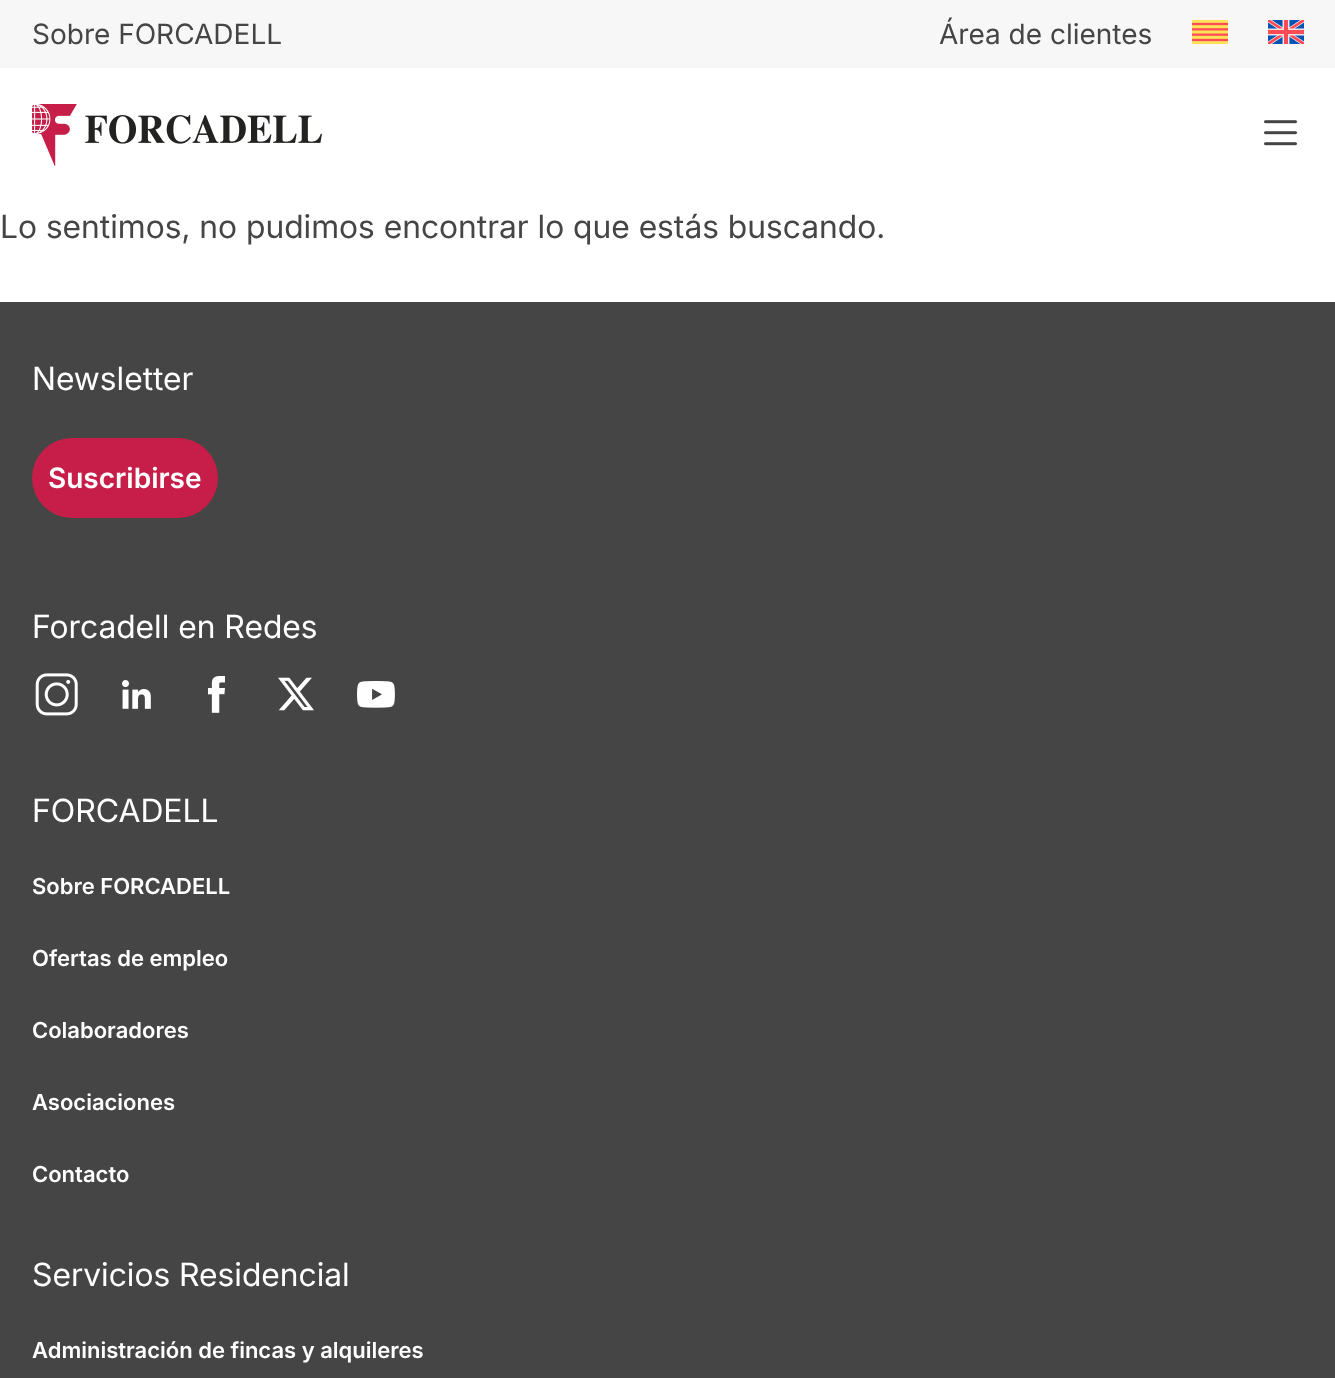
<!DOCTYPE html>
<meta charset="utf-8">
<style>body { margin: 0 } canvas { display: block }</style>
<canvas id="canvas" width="1335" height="1378"></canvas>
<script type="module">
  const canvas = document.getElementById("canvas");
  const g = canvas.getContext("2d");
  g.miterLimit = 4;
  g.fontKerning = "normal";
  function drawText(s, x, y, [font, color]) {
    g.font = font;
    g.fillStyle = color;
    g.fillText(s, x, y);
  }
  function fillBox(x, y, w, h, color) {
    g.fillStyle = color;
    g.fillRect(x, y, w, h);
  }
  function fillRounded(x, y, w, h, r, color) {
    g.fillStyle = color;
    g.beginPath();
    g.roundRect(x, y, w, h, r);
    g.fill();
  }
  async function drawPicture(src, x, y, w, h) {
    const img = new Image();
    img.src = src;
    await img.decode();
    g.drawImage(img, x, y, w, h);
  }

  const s1 = ["28px 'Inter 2'", "#464545"];
  const s2 = ["32px Inter", "#464545"];
  const s3 = ["32px Inter", "#FFFFFF"];
  const s4 = ["600 28px Inter", "#FFFFFF"];
  const s5 = ["600 22px Inter", "#FFFFFF"];

  fillBox(0, 0, 1335, 1378, "#FFFFFF");
  fillBox(0, 0, 1335, 68, "#F7F7F8");
  drawText("Sobre FORCADELL", 32, 44, s1);
  drawText("Área de clientes", 939, 44, s1);
  await drawPicture("pic1.png", 1192, 20, 36, 24);
  await drawPicture("pic2.png", 1268, 20, 36, 24);
  await drawPicture("pic3.png", 32, 104, 290, 62);
  await drawPicture("pic4.png", 1264, 120, 33, 26);
  drawText("Lo sentimos, no pudimos encontrar lo que estás buscando.", 0, 238, s2);
  fillBox(0, 302, 1335, 1076, "#464545");
  drawText("Newsletter", 32, 390, s3);
  fillRounded(32, 438, 186, 80, 40, "#C61E48");
  drawText("Suscribirse", 48, 488, s4);
  drawText("Forcadell en Redes", 32, 638, s3);
  await drawPicture("pic5.png", 35, 673, 43, 43);
  await drawPicture("pic6.png", 122, 680, 29, 29);
  await drawPicture("pic7.png", 208, 676, 17, 37);
  await drawPicture("pic8.png", 278, 677, 36, 34);
  await drawPicture("pic9.png", 357, 681, 38, 27);
  drawText("FORCADELL", 32, 822, s3);
  drawText("Sobre FORCADELL", 32, 894, s5);
  drawText("Ofertas de empleo", 32, 966, s5);
  drawText("Colaboradores", 32, 1038, s5);
  drawText("Asociaciones", 32, 1110, s5);
  drawText("Contacto", 32, 1182, s5);
  drawText("Servicios Residencial", 32, 1286, s3);
  drawText("Administración de fincas y alquileres", 32, 1358, s5);
</script>
